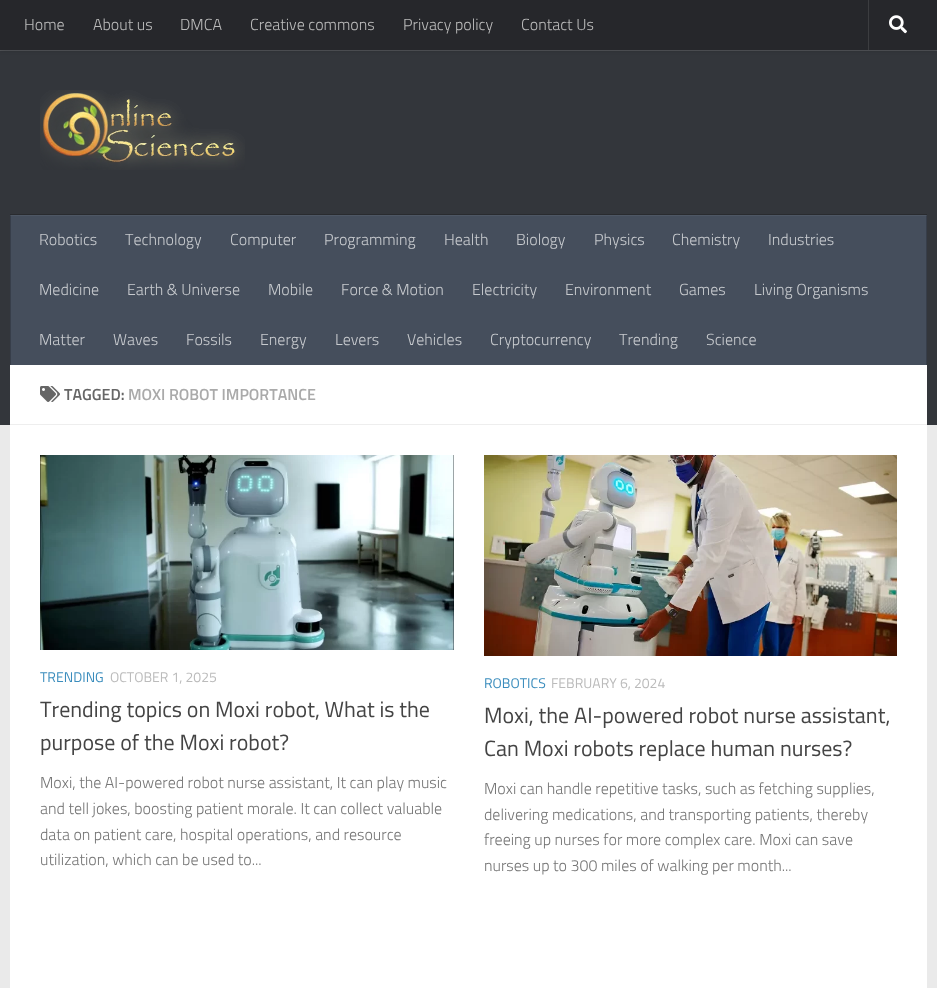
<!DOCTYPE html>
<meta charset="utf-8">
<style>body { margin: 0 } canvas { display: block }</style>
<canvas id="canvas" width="937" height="988"></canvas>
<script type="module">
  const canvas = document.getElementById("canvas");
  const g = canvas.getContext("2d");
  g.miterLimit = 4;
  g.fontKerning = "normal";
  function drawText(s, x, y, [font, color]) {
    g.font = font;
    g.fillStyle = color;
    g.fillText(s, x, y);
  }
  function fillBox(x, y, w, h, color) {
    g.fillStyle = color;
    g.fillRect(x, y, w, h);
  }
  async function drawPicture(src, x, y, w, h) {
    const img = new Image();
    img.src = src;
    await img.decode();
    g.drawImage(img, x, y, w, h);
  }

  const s1 = ["300 16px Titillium", "#BBBBBB"];
  const s2 = ["300 16px Titillium", "#C7CACE"];
  const s3 = ["600 16px Titillium", "#666666"];
  const s4 = ["600 16px Titillium", "#AAAAAA"];
  const s5 = ["14px Titillium", "#3B8DBD"];
  const s6 = ["14px Titillium", "#BBBBBB"];
  const s7 = ["22px Titillium", "#444444"];
  const s8 = ["300 16px Titillium", "#767676"];

  fillBox(0, 0, 937, 988, "#EAEAEA");
  fillBox(0, 51, 937, 374, "#33363B");
  fillBox(0, 50, 937, 1, "#525458");
  g.fillStyle = "rgba(0, 0, 0, 0.2)";
  g.filter = "blur(2.5px)";
  g.beginPath();
  g.rect(0, 0, 937, 50);
  g.fill();
  g.filter = "none";
  fillBox(0, 0, 937, 50, "#26272B");
  drawText("Home", 24, 30, s1);
  drawText("About us", 93, 30, s1);
  drawText("DMCA", 180, 30, s1);
  drawText("Creative commons", 250, 30, s1);
  drawText("Privacy policy", 403, 30, s1);
  drawText("Contact Us", 521, 30, s1);
  fillBox(868, 0, 1, 50, "#3C3D40");
  await drawPicture("pic1.png", 889, 15, 18, 19);
  await drawPicture("pic2.png", 40, 90, 205, 80);
  fillBox(10, 214, 917, 1, "#292B2F");
  fillBox(11, 216, 915, 149, "#454E5C");
  fillBox(10, 215, 917, 1, "#4E5764");
  fillBox(926, 215, 1, 150, "#373E4A");
  fillBox(926, 215, 1, 1, "#414853");
  fillBox(10, 215, 1, 150, "#373E4A");
  fillBox(10, 215, 1, 1, "#414853");
  drawText("Robotics", 39, 245, s2);
  drawText("Technology", 125, 245, s2);
  drawText("Computer", 230, 245, s2);
  drawText("Programming", 324, 245, s2);
  drawText("Health", 444, 245, s2);
  drawText("Biology", 516, 245, s2);
  drawText("Physics", 594, 245, s2);
  drawText("Chemistry", 672, 245, s2);
  drawText("Industries", 768, 245, s2);
  drawText("Medicine", 39, 295, s2);
  drawText("Earth & Universe", 127, 295, s2);
  drawText("Mobile", 268, 295, s2);
  drawText("Force & Motion", 341, 295, s2);
  drawText("Electricity", 472, 295, s2);
  drawText("Environment", 565, 295, s2);
  drawText("Games", 679, 295, s2);
  drawText("Living Organisms", 754, 295, s2);
  drawText("Matter", 39, 345, s2);
  drawText("Waves", 113, 345, s2);
  drawText("Fossils", 186, 345, s2);
  drawText("Energy", 260, 345, s2);
  drawText("Levers", 335, 345, s2);
  drawText("Vehicles", 407, 345, s2);
  drawText("Cryptocurrency", 490, 345, s2);
  drawText("Trending", 619, 345, s2);
  drawText("Science", 706, 345, s2);
  fillBox(10, 365, 917, 623, "#FFFFFF");
  fillBox(10, 424, 917, 1, "#EEEEEE");
  await drawPicture("pic3.png", 40, 386, 20, 16);
  drawText("TAGGED:", 64, 400, s3);
  drawText("MOXI ROBOT IMPORTANCE", 128, 400, s4);
  await drawPicture("pic4.png", 40, 455, 414, 195);
  drawText("TRENDING", 40, 682, s5);
  drawText("OCTOBER 1, 2025", 110, 682, s6);
  drawText("Trending topics on Moxi robot, What is the", 40, 717, s7);
  drawText("purpose of the Moxi robot?", 40, 750, s7);
  drawText("Moxi, the AI-powered robot nurse assistant, It can play music", 40, 788, s8);
  drawText("and tell jokes, boosting patient morale. It can collect valuable", 40, 814, s8);
  drawText("data on patient care, hospital operations, and resource", 40, 840, s8);
  drawText("utilization, which can be used to...", 40, 865, s8);
  await drawPicture("pic5.png", 484, 455, 413, 201);
  drawText("ROBOTICS", 484, 688, s5);
  drawText("FEBRUARY 6, 2024", 551, 688, s6);
  drawText("Moxi, the AI-powered robot nurse assistant,", 484, 723, s7);
  drawText("Can Moxi robots replace human nurses?", 484, 756, s7);
  drawText("Moxi can handle repetitive tasks, such as fetching supplies,", 484, 794, s8);
  drawText("delivering medications, and transporting patients, thereby", 484, 820, s8);
  drawText("freeing up nurses for more complex care. Moxi can save", 484, 845, s8);
  drawText("nurses up to 300 miles of walking per month...", 484, 871, s8);
</script>
